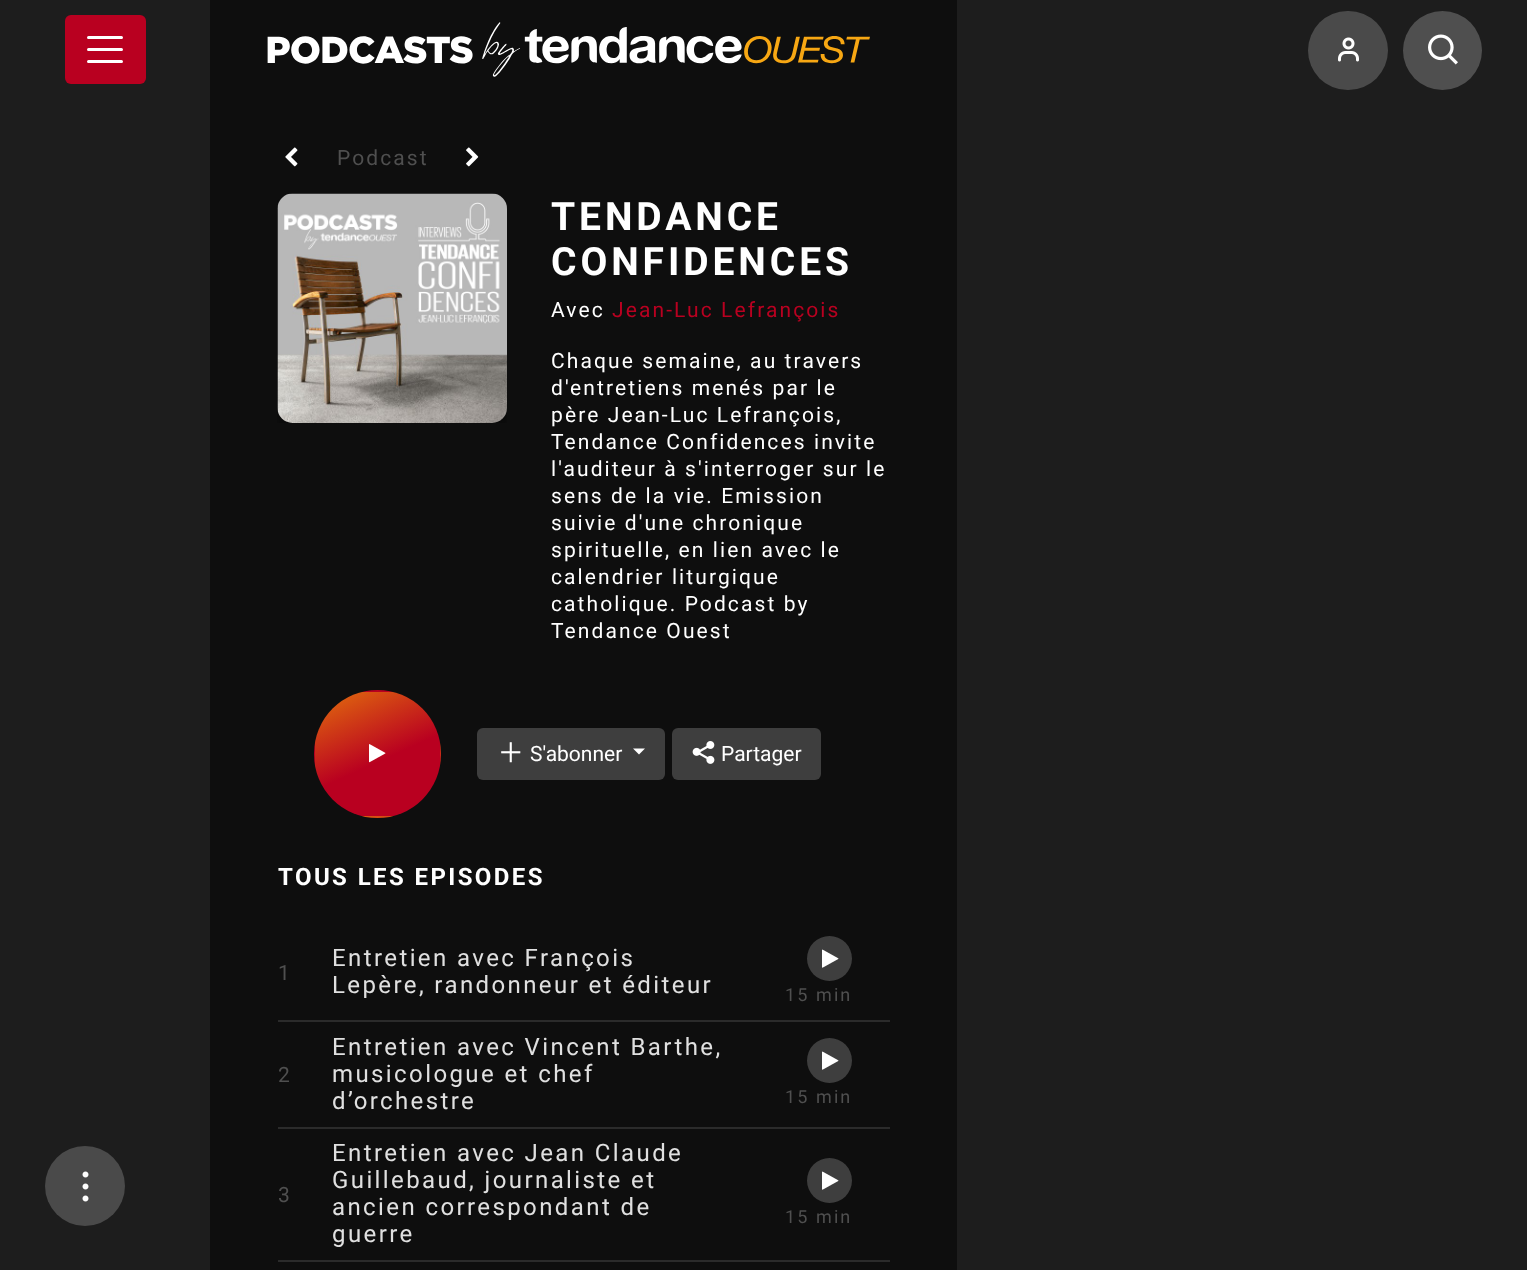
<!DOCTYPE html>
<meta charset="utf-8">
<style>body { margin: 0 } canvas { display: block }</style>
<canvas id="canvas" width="1527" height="1270"></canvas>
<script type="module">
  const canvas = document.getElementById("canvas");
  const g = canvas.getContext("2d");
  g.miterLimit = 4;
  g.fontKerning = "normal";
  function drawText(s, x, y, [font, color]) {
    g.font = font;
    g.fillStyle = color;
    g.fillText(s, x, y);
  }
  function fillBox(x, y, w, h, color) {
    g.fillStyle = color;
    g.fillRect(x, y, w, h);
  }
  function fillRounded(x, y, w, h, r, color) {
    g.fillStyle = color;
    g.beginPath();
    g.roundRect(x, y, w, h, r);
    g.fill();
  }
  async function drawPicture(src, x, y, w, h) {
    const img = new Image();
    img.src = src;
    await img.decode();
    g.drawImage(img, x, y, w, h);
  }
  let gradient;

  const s1 = ["21px Roboto", "#4F4F4F"];
  const s2 = ["bold 39px Roboto", "#FFFFFF"];
  const s3 = ["21px Roboto", "#FFFFFF"];
  const s4 = ["21px Roboto", "#B90020"];
  const s5 = ["bold 24px Roboto", "#FFFFFF"];
  const s6 = ["24px Roboto", "#E0E0E0"];
  const s7 = ["18px Roboto", "#4F4F4F"];

  fillBox(0, 0, 1527, 1270, "#1D1D1D");
  fillBox(210, 0, 747, 1270, "#0E0E0E");
  fillRounded(65, 15, 81, 69, 6, "#B90020");
  g.beginPath();
  g.moveTo(88.5, 37.5);
  g.lineTo(121.5, 37.5);
  g.moveTo(88.5, 49.5);
  g.lineTo(121.5, 49.5);
  g.moveTo(88.5, 61.5);
  g.lineTo(121.5, 61.5);
  g.strokeStyle = "#FFFFFF";
  g.lineWidth = 3;
  g.lineCap = "round";
  g.stroke();
  await drawPicture("pic1.png", 267, 22, 603, 55);
  fillRounded(1308, 11, 80, 79, 39.5, "#4A4A4A");
  await drawPicture("pic2.png", 1338, 37, 21, 25);
  g.fillStyle = "#4F4F4F";
  g.beginPath();
  g.arc(1442.5, 50.5, 39.5, 0, Math.PI * 2);
  g.fill();
  await drawPicture("pic3.png", 1428, 34, 30, 31);
  g.fillStyle = "#4A4A4A";
  g.beginPath();
  g.arc(85, 1186, 40, 0, Math.PI * 2);
  g.fill();
  await drawPicture("pic4.png", 82, 1171, 7, 31);
  await drawPicture("pic5.png", 285, 147, 13, 20);
  g.letterSpacing = "2.1px";
  drawText("Podcast", 337, 165, s1);
  await drawPicture("pic6.png", 466, 147, 13, 20);
  await drawPicture("pic7.png", 277, 193, 230, 230);
  g.letterSpacing = "3.9px";
  drawText("TENDANCE", 551, 230, s2);
  drawText("CONFIDENCES", 551, 275, s2);
  g.letterSpacing = "2.1px";
  drawText("Avec", 551, 317, s3);
  drawText("Jean-Luc Lefrançois", 612, 317, s4);
  drawText("Chaque semaine, au travers", 551, 368, s3);
  drawText("d'entretiens menés par le", 551, 395, s3);
  drawText("père Jean-Luc Lefrançois,", 551, 422, s3);
  drawText("Tendance Confidences invite", 551, 449, s3);
  drawText("l'auditeur à s'interroger sur le", 551, 476, s3);
  drawText("sens de la vie. Emission", 551, 503, s3);
  drawText("suivie d'une chronique", 551, 530, s3);
  drawText("spirituelle, en lien avec le", 551, 557, s3);
  drawText("calendrier liturgique", 551, 584, s3);
  drawText("catholique. Podcast by", 551, 611, s3);
  drawText("Tendance Ouest", 551, 638, s3);
  g.save();
  g.beginPath();
  g.roundRect(314, 690, 127, 128, 63.5);
  g.clip();
  gradient = g.createLinearGradient(411, 704, 318, 499);
  gradient.addColorStop(0.33, "#B90020");
  gradient.addColorStop(1, "#FFBB00");
  g.fillStyle = gradient;
  g.fillRect(362, 690, 31, 2);
  gradient = g.createLinearGradient(287, 829, 194, 623);
  gradient.addColorStop(0.33, "#B90020");
  gradient.addColorStop(1, "#FFBB00");
  g.fillStyle = gradient;
  g.fillRect(314, 742, 1, 24);
  gradient = g.createLinearGradient(411, 829, 318, 623);
  gradient.addColorStop(0.33, "#B90020");
  gradient.addColorStop(1, "#FFBB00");
  g.fillStyle = gradient;
  g.fillRect(315, 692, 125, 124);
  gradient = g.createLinearGradient(536, 829, 443, 623);
  gradient.addColorStop(0.33, "#B90020");
  gradient.addColorStop(1, "#FFBB00");
  g.fillStyle = gradient;
  g.fillRect(440, 742, 1, 24);
  gradient = g.createLinearGradient(411, 953, 318, 748);
  gradient.addColorStop(0.33, "#B90020");
  gradient.addColorStop(1, "#FFBB00");
  g.fillStyle = gradient;
  g.fillRect(362, 816, 31, 2);
  g.restore();
  await drawPicture("pic8.png", 369, 744, 17, 19);
  fillRounded(477, 728, 188, 52, 6, "#3E3E3E");
  await drawPicture("pic9.png", 501, 742, 20, 21);
  g.letterSpacing = "0px";
  drawText("S'abonner", 530, 761, s3);
  g.beginPath();
  g.moveTo(633, 748.5);
  g.lineTo(645, 748.5);
  g.lineTo(639, 754.5);
  g.closePath();
  g.fill();
  fillRounded(672, 728, 149, 52, 6, "#3E3E3E");
  await drawPicture("pic10.png", 692, 741, 23, 23);
  drawText("Partager", 721, 761, s3);
  g.letterSpacing = "2.4px";
  drawText("TOUS LES EPISODES", 278, 885, s5);
  g.letterSpacing = "2.1px";
  drawText("1", 278, 980, s1);
  g.letterSpacing = "2.4px";
  drawText("Entretien avec François", 332, 966, s6);
  drawText("Lepère, randonneur et éditeur", 332, 993, s6);
  g.fillStyle = "#3E3E3E";
  g.beginPath();
  g.arc(829.5, 958.5, 22.5, 0, Math.PI * 2);
  g.fill();
  await drawPicture("pic11.png", 822, 949, 17, 19);
  g.letterSpacing = "2.1px";
  drawText("15 min", 785, 1001, s7);
  fillBox(278, 1020, 612, 2, "#2B2B2B");
  drawText("2", 278, 1082, s1);
  g.letterSpacing = "2.4px";
  drawText("Entretien avec Vincent Barthe,", 332, 1055, s6);
  drawText("musicologue et chef", 332, 1082, s6);
  drawText("d’orchestre", 332, 1109, s6);
  g.fillStyle = "#3E3E3E";
  g.beginPath();
  g.arc(829.5, 1060.5, 22.5, 0, Math.PI * 2);
  g.fill();
  await drawPicture("pic11.png", 822, 1051, 17, 19);
  g.letterSpacing = "2.1px";
  drawText("15 min", 785, 1103, s7);
  fillBox(278, 1127, 612, 2, "#2B2B2B");
  drawText("3", 278, 1202, s1);
  g.letterSpacing = "2.4px";
  drawText("Entretien avec Jean Claude", 332, 1161, s6);
  drawText("Guillebaud, journaliste et", 332, 1188, s6);
  drawText("ancien correspondant de", 332, 1215, s6);
  drawText("guerre", 332, 1242, s6);
  g.fillStyle = "#3E3E3E";
  g.beginPath();
  g.arc(829.5, 1180.5, 22.5, 0, Math.PI * 2);
  g.fill();
  await drawPicture("pic11.png", 822, 1171, 17, 19);
  g.letterSpacing = "2.1px";
  drawText("15 min", 785, 1223, s7);
  fillBox(278, 1260, 612, 2, "#2B2B2B");
</script>
